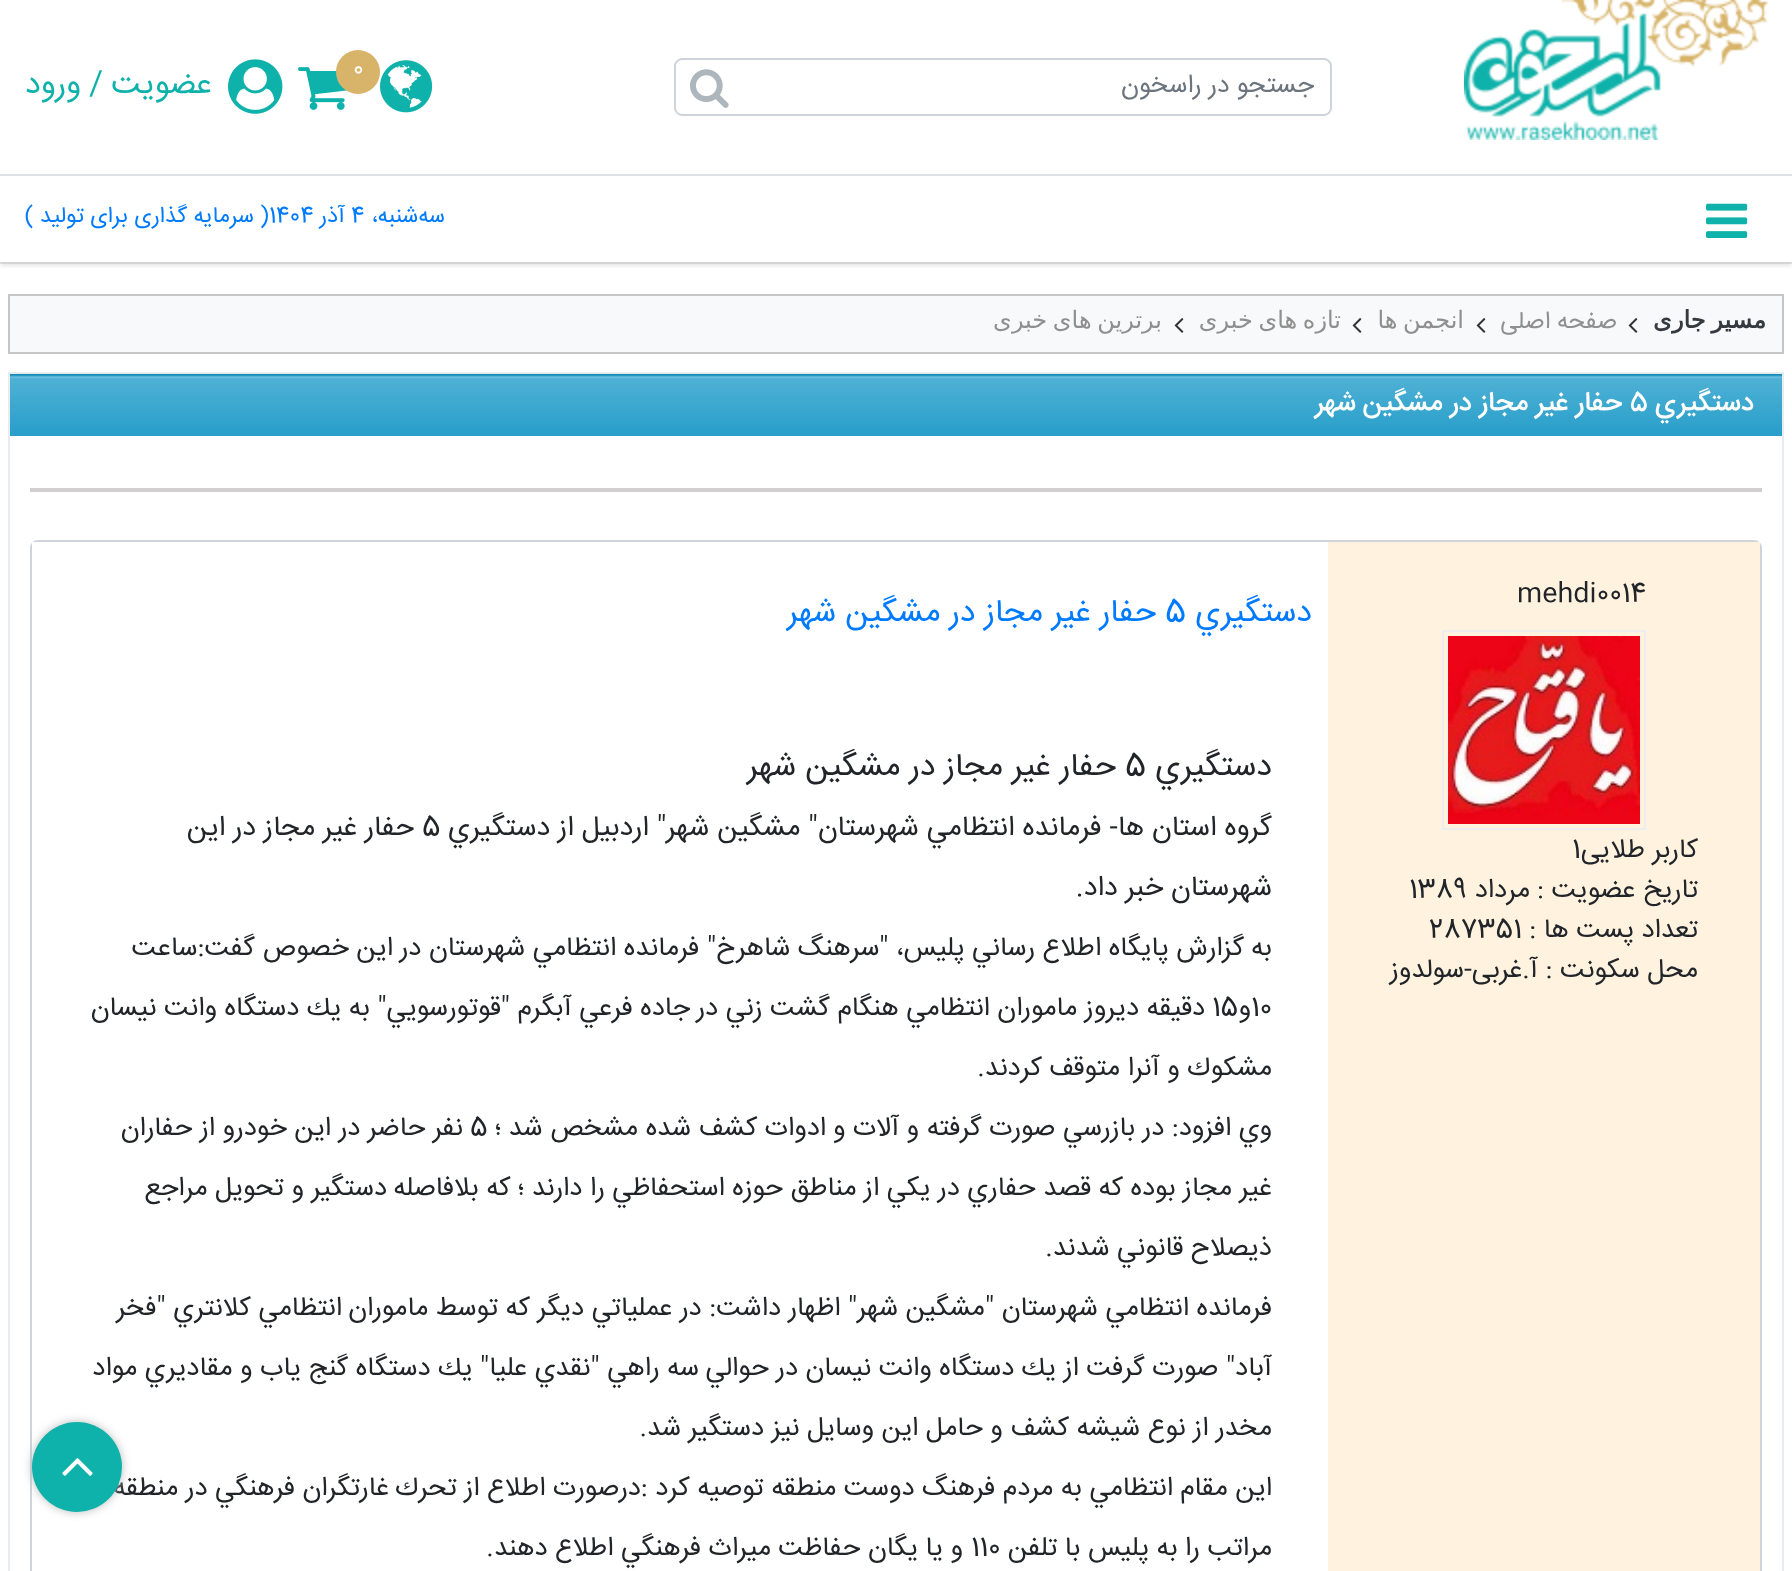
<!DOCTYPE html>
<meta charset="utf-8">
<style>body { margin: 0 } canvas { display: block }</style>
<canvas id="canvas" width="1792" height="1571"></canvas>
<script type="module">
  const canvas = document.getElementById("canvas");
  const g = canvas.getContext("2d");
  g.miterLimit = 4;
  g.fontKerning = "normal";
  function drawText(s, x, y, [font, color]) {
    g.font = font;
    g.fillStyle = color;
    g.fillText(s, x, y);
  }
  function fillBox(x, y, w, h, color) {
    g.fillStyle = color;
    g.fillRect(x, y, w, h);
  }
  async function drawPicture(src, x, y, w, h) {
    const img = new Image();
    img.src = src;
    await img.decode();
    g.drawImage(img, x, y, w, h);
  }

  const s1 = ["25.5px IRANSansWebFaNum", "#6C757D"];
  const s2 = ["22.4px IRANSansWebFaNum", "#FFFFFF"];
  const s3 = ["32px IRANSansWebFaNum", "#0FB2AA"];
  const s4 = ["22.4px IRANSansWebFaNum", "#007BFF"];
  const s5 = ["bold 24px DejaVu Sans", "#343A40"];
  const s6 = ["24px IRANSansWebFaNum", "#8F8F8F"];
  const s7 = ["24px DejaVu Sans", "#8F8F8F"];
  const s8 = ["500 27px IRANSansWebFaNum", "#FFFFFF"];
  const s9 = ["26.7px IRANSansWebFaNum", "#212529"];
  const s10 = ["32px IRANSansWebFaNum", "#007BFF"];
  const s11 = ["32px IRANSansWebFaNum", "#212529"];
  const s12 = ["28px IRANSansWebFaNum", "#212529"];

  fillBox(0, 0, 1792, 1571, "#FFFFFF");
  fillBox(0, 174, 1792, 2, "#DEE2E6");
  await drawPicture("pic1.png", 1464, 0, 304, 140);
  g.fillStyle = "#CED4DA";
  g.beginPath();
  g.moveTo(744, 58);
  g.lineTo(1324, 58);
  g.bezierCurveTo(1328, 58, 1332, 62, 1332, 66);
  g.lineTo(1332, 108);
  g.bezierCurveTo(1332, 112, 1328, 116, 1324, 116);
  g.lineTo(744, 116);
  g.closePath();
  g.moveTo(744, 60);
  g.lineTo(1324, 60);
  g.bezierCurveTo(1327, 60, 1330, 63, 1330, 66);
  g.lineTo(1330, 108);
  g.bezierCurveTo(1330, 111, 1327, 114, 1324, 114);
  g.lineTo(744, 114);
  g.closePath();
  g.fill("evenodd");
  g.direction = "rtl";
  drawText("جستجو در راسخون", 1314, 92, s1);
  g.fillStyle = "#CED4DA";
  g.beginPath();
  g.moveTo(682, 58);
  g.lineTo(744, 58);
  g.lineTo(744, 116);
  g.lineTo(682, 116);
  g.bezierCurveTo(678, 116, 674, 112, 674, 108);
  g.lineTo(674, 66);
  g.bezierCurveTo(674, 62, 678, 58, 682, 58);
  g.closePath();
  g.moveTo(682, 60);
  g.lineTo(744, 60);
  g.lineTo(744, 114);
  g.lineTo(682, 114);
  g.bezierCurveTo(679, 114, 676, 111, 676, 108);
  g.lineTo(676, 66);
  g.bezierCurveTo(676, 63, 679, 60, 682, 60);
  g.closePath();
  g.fill("evenodd");
  await drawPicture("pic2.png", 690, 69, 39, 39);
  await drawPicture("pic3.png", 380, 60, 53, 53);
  await drawPicture("pic4.png", 298, 67, 49, 43);
  g.fillStyle = "#D7B46A";
  g.beginPath();
  g.arc(358, 72, 22, 0, Math.PI * 2);
  g.fill();
  g.direction = "ltr";
  drawText("0", 353, 75, s2);
  await drawPicture("pic5.png", 228, 59, 55, 55);
  g.direction = "rtl";
  drawText("عضویت", 212, 93, s3);
  g.direction = "ltr";
  drawText("/", 89, 93, s3);
  g.direction = "rtl";
  drawText("ورود", 81, 93, s3);
  g.save();
  g.beginPath();
  g.rect(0, 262, 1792, 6);
  g.clip();
  g.fillStyle = "rgba(0, 0, 0, 0.1)";
  g.filter = "blur(2px)";
  g.beginPath();
  g.rect(0, 180, 1792, 86);
  g.fill();
  g.filter = "none";
  g.restore();
  fillBox(0, 262, 1792, 2, "rgba(0, 0, 0, 0.08)");
  await drawPicture("pic6.png", 1706, 203, 42, 35);
  drawText("سه‌شنبه،", 445, 222, s4);
  g.direction = "ltr";
  drawText("4", 351, 222, s4);
  g.direction = "rtl";
  drawText("آذر", 345, 222, s4);
  g.direction = "ltr";
  drawText("1404", 269, 222, s4);
  g.direction = "rtl";
  drawText("( سرمایه گذاری برای تولید )", 269, 222, s4);
  g.fillStyle = "#F8F9FA";
  g.beginPath();
  g.rect(9, 295, 1774, 58);
  g.fill();
  g.strokeStyle = "#C5C5C5";
  g.lineWidth = 2;
  g.stroke();
  g.wordSpacing = "-2px";
  drawText("مسیر جاری", 1766, 328, s5);
  await drawPicture("pic7.png", 1628, 318, 10, 15);
  g.wordSpacing = "0px";
  drawText("صفحه اصلی", 1617, 328, s6);
  await drawPicture("pic7.png", 1476, 318, 10, 15);
  g.wordSpacing = "-2px";
  drawText("انجمن ها", 1464, 328, s7);
  await drawPicture("pic7.png", 1352, 318, 10, 15);
  drawText("تازه های خبری", 1341, 328, s7);
  await drawPicture("pic7.png", 1174, 318, 10, 15);
  drawText("برترین های خبری", 1162, 328, s7);
  g.strokeStyle = "#E9ECEF";
  g.strokeRect(9, 373, 1774, 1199);
  await drawPicture("pic8.png", 10, 374, 1772, 62);
  g.wordSpacing = "0px";
  drawText("دستگيري", 1754, 410, s8);
  g.direction = "ltr";
  drawText("5", 1630, 410, s8);
  g.direction = "rtl";
  drawText("حفار غير مجاز در مشگين شهر", 1622, 410, s8);
  fillBox(30, 488, 1732, 4, "#D1CFCF");
  g.beginPath();
  g.roundRect(31, 541, 1730, 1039, 7);
  g.strokeStyle = "#CED4DA";
  g.stroke();
  fillBox(1328, 542, 432, 1029, "#FFF3E0");
  g.direction = "ltr";
  drawText("mehdi0014", 1517, 601, s9);
  g.strokeStyle = "#EEEEEE";
  g.strokeRect(1443, 631, 202, 198);
  await drawPicture("pic9.png", 1448, 636, 192, 188);
  g.direction = "rtl";
  drawText("کاربر طلایی", 1698, 857, s9);
  g.direction = "ltr";
  drawText("1", 1572, 857, s9);
  g.direction = "rtl";
  drawText("تاریخ عضویت :", 1698, 897, s9);
  drawText("مرداد", 1530, 897, s9);
  g.direction = "ltr";
  drawText("1389", 1409, 897, s9);
  g.direction = "rtl";
  drawText("تعداد پست ها :", 1698, 937, s9);
  g.direction = "ltr";
  drawText("287351", 1429, 937, s9);
  g.direction = "rtl";
  drawText("محل سکونت : آ.غربی-سولدوز", 1698, 977, s9);
  fillBox(32, 542, 5, 5, "#FFFFFF");
  drawText("دستگيري", 1312, 621, s10);
  g.direction = "ltr";
  drawText("5", 1165, 621, s10);
  g.direction = "rtl";
  drawText("حفار غير مجاز در مشگين شهر", 1156, 621, s10);
  drawText("دستگيري", 1272, 775, s11);
  g.direction = "ltr";
  drawText("5", 1125, 775, s11);
  g.direction = "rtl";
  drawText("حفار غير مجاز در مشگين شهر", 1116, 775, s11);
  drawText("گروه استان ها- فرمانده انتظامي شهرستان\" مشگين شهر\" اردبيل از دستگيري", 1272, 835, s12);
  g.direction = "ltr";
  drawText("5", 422, 835, s12);
  g.direction = "rtl";
  drawText("حفار غير مجاز در اين", 414, 835, s12);
  drawText("شهرستان خبر داد.", 1272, 895, s12);
  drawText("به", 1272, 955, s9);
  drawText("گزارش پايگاه اطلاع رساني پليس، \"سرهنگ شاهرخ\" فرمانده انتظامي شهرستان در", 1244, 955, s9);
  drawText("اين خصوص گفت:ساعت", 393, 955, s9);
  g.direction = "ltr";
  drawText("10", 1251, 1015, s9);
  g.direction = "rtl";
  drawText("و", 1251, 1015, s9);
  g.direction = "ltr";
  drawText("15", 1212, 1015, s9);
  g.direction = "rtl";
  drawText("دقيقه ديروز ماموران انتظامي هنگام گشت زني در", 1205, 1015, s9);
  drawText("جاده فرعي آبگرم \"قوتورسويي\" به يك دستگاه وانت نيسان", 690, 1015, s9);
  drawText("مشكوك و آنرا متوقف", 1272, 1075, s9);
  drawText("كردند.", 1042, 1075, s9);
  drawText("وي افزود: در بازرسي صورت گرفته و آلات و", 1272, 1135, s9);
  drawText("ادوات كشف شده مشخص شد ؛", 826, 1135, s9);
  g.direction = "ltr";
  drawText("5", 470, 1135, s9);
  g.direction = "rtl";
  drawText("نفر حاضر در اين خودرو از حفاران", 463, 1135, s9);
  drawText("غير مجاز بوده", 1272, 1195, s9);
  drawText("كه قصد حفاري در يكي از مناطق حوزه استحفاظي را دارند ؛ كه بلافاصله", 1123, 1195, s9);
  drawText("دستگير و تحويل مراجع", 387, 1195, s9);
  drawText("ذيصلاح قانوني شدند.", 1272, 1255, s9);
  drawText("فرمانده", 1272, 1315, s9);
  drawText("انتظامي شهرستان \"مشگين شهر\" اظهار داشت: در عملياتي ديگر كه توسط ماموران", 1189, 1315, s9);
  drawText("انتظامي كلانتري \"فخر", 342, 1315, s9);
  drawText("آباد\" صورت گرفت از يك دستگاه وانت نيسان در حوالي", 1272, 1375, s9);
  drawText("سه راهي \"نقدي عليا\" يك دستگاه گنج ياب و مقاديري مواد", 699, 1375, s9);
  drawText("مخدر از نوع شيشه", 1272, 1435, s9);
  drawText("كشف و حامل اين وسايل نيز دستگير شد.", 1069, 1435, s9);
  drawText("اين مقام", 1272, 1495, s9);
  drawText("انتظامي به مردم فرهنگ دوست منطقه توصيه كرد :درصورت اطلاع از تحرك", 1173, 1495, s9);
  drawText("غارتگران فرهنگي در منطقه،", 389, 1495, s9);
  drawText("مراتب را به پليس با تلفن", 1272, 1555, s9);
  g.direction = "ltr";
  drawText("110", 971, 1555, s9);
  g.direction = "rtl";
  drawText("و يا يگان حفاظت", 963, 1555, s9);
  drawText("ميراث فرهنگي اطلاع دهند.", 771, 1555, s9);
  g.fillStyle = "#BBBBBB";
  g.filter = "blur(5px)";
  g.beginPath();
  g.roundRect(32, 1422, 90, 90, 45);
  g.fill();
  g.filter = "none";
  g.fillStyle = "#0FB2AA";
  g.beginPath();
  g.arc(77, 1467, 45, 0, Math.PI * 2);
  g.fill();
  await drawPicture("pic10.png", 62, 1458, 31, 18);
</script>
